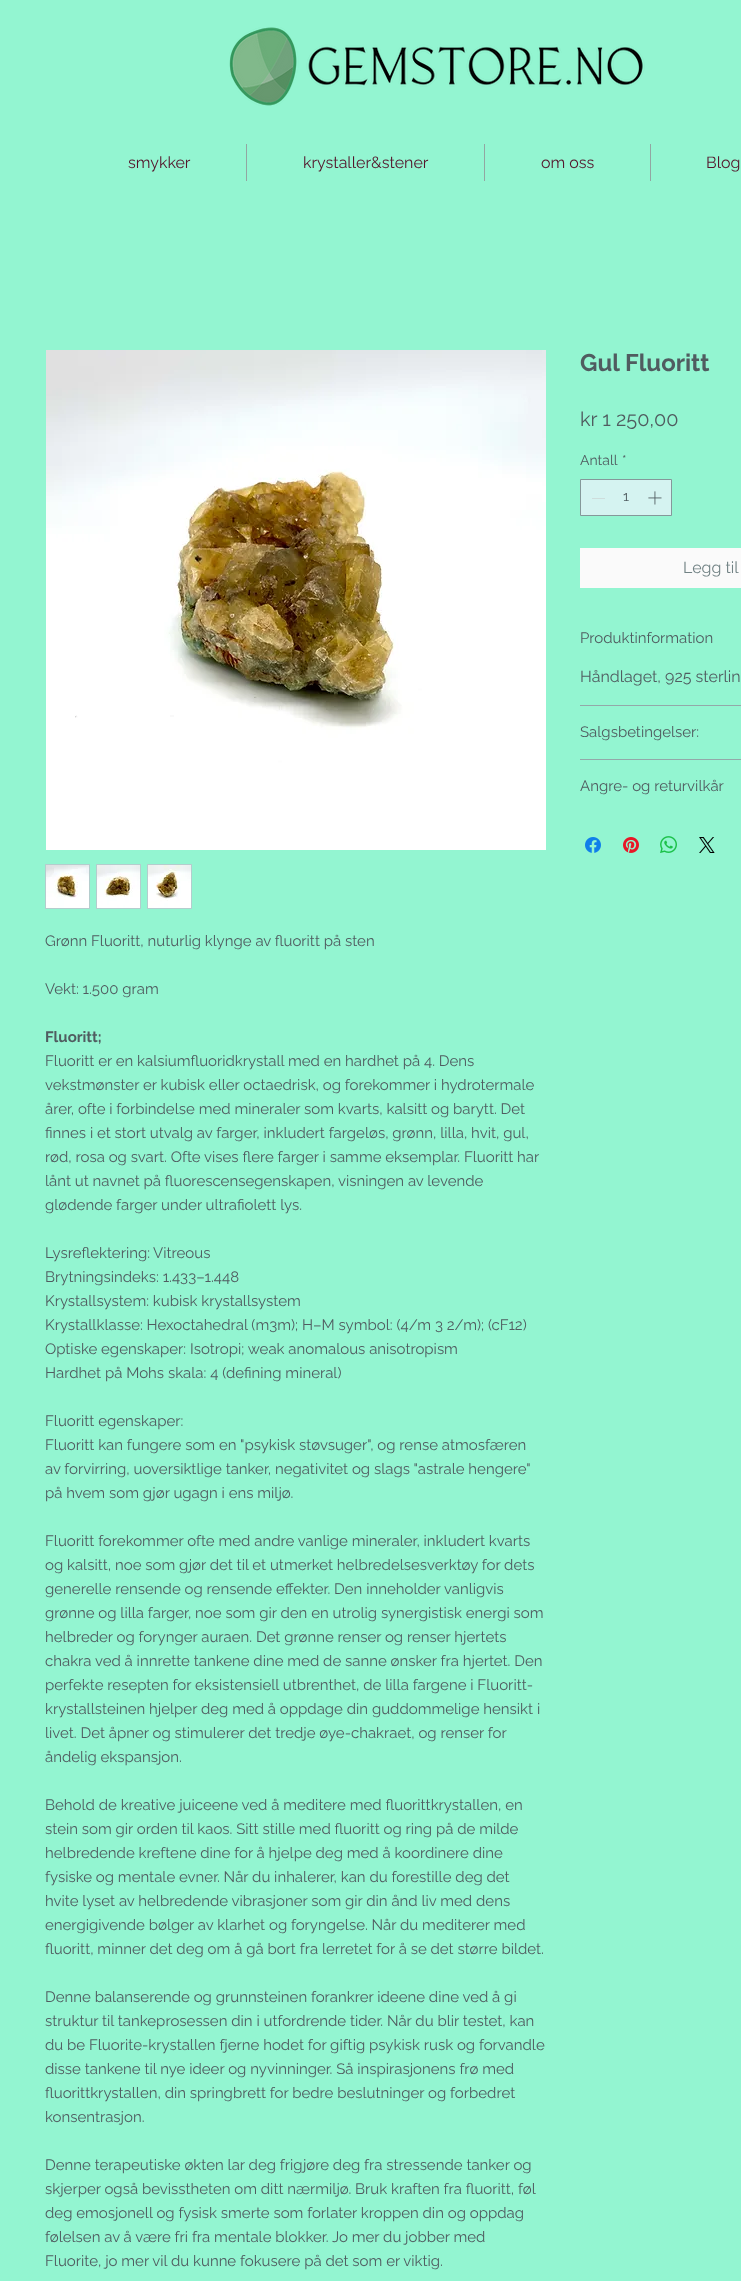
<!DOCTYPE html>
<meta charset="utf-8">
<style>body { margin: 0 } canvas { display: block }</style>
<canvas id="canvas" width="741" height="2281"></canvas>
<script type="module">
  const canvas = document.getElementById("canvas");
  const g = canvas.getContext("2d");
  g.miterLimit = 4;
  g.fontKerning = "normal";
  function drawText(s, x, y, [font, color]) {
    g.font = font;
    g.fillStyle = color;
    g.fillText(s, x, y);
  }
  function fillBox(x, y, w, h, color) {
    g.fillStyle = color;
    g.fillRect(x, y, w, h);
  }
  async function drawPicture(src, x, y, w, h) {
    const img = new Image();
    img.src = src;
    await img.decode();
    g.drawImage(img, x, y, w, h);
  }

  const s1 = ["16px Raleway", "#54142B"];
  const s2 = ["bold 24px Raleway", "#505C60"];
  const s3 = ["20px Raleway", "#505C60"];
  const s4 = ["14px Raleway", "#505C60"];
  const s5 = ["16px Raleway", "#718284"];
  const s6 = ["15px Raleway", "#505C60"];
  const s7 = ["16px Raleway", "#505C60"];
  const s8 = ["bold 15px Raleway", "#505C60"];

  fillBox(0, 0, 741, 2281, "#93F5D1");
  await drawPicture("pic1.png", 229, 27, 416, 79);
  drawText("smykker", 128, 168, s1);
  fillBox(246, 144, 1, 37, "#92A6A2");
  drawText("krystaller&stener", 303, 168, s1);
  fillBox(484, 144, 1, 37, "#92A6A2");
  drawText("om oss", 541, 168, s1);
  fillBox(650, 144, 1, 37, "#92A6A2");
  drawText("Blog", 706, 168, s1);
  drawText("Gul Fluoritt", 580, 371, s2);
  drawText("kr 1 250,00", 580, 426, s3);
  drawText("Antall", 580, 465, s4);
  drawText("*", 622, 465, s4);
  g.fillStyle = "#D5F3F1";
  g.beginPath();
  g.rect(580.5, 479.5, 91, 36);
  g.fill();
  g.strokeStyle = "#85989A";
  g.stroke();
  fillBox(592, 498, 13, 1, "#CEDDDC");
  drawText("1", 623, 501, s4);
  await drawPicture("pic2.png", 648, 491, 14, 14);
  fillBox(580, 548, 161, 40, "#FAFAFA");
  drawText("Legg til", 683, 573, s5);
  fillBox(580, 705, 161, 1, "#93A8A9");
  drawText("Produktinformation", 580, 643, s6);
  drawText("Håndlaget, 925 sterlin", 580, 682, s7);
  fillBox(580, 759, 161, 1, "#93A8A9");
  drawText("Salgsbetingelser:", 580, 737, s6);
  drawText("Angre- og returvilkår", 580, 791, s6);
  await drawPicture("pic3.png", 585, 837, 16, 16);
  await drawPicture("pic4.png", 623, 837, 16, 16);
  await drawPicture("pic5.png", 660, 836, 17, 17);
  await drawPicture("pic6.png", 699, 837, 16, 16);
  await drawPicture("pic7.png", 46, 350, 500, 500);
  fillBox(45, 864, 45, 45, "#B4CDCD");
  await drawPicture("pic8.png", 46, 865, 43, 43);
  fillBox(96, 864, 45, 45, "#B4CDCD");
  await drawPicture("pic9.png", 97, 865, 43, 43);
  fillBox(147, 864, 45, 45, "#B4CDCD");
  await drawPicture("pic10.png", 148, 865, 43, 43);
  drawText("Grønn Fluoritt, nuturlig klynge av fluoritt på sten", 45, 946, s6);
  drawText("Vekt: 1.500 gram", 45, 994, s6);
  drawText("Fluoritt;", 45, 1042, s8);
  drawText("Fluoritt er en kalsiumfluoridkrystall med en hardhet på 4. Dens", 45, 1066, s6);
  drawText("vekstmønster er kubisk eller octaedrisk, og forekommer i hydrotermale", 45, 1090, s6);
  drawText("årer, ofte i forbindelse med mineraler som kvarts, kalsitt og barytt. Det", 45, 1114, s6);
  drawText("finnes i et stort utvalg av farger, inkludert fargeløs, grønn, lilla, hvit, gul,", 45, 1138, s6);
  drawText("rød, rosa og svart. Ofte vises flere farger i samme eksemplar. Fluoritt har", 45, 1162, s6);
  drawText("lånt ut navnet på fluorescensegenskapen, visningen av levende", 45, 1186, s6);
  drawText("glødende farger under ultrafiolett lys.", 45, 1210, s6);
  drawText("Lysreflektering:", 45, 1258, s6);
  drawText("Vitreous", 153, 1258, s6);
  drawText("Brytningsindeks: 1.433–1.448", 45, 1282, s6);
  drawText("Krystallsystem: kubisk krystallsystem", 45, 1306, s6);
  drawText("Krystallklasse: Hexoctahedral (m3m); H–M symbol: (4/m 3 2/m); (cF12)", 45, 1330, s6);
  drawText("Optiske egenskaper: Isotropi; weak anomalous anisotropism", 45, 1354, s6);
  drawText("Hardhet på Mohs skala: 4 (defining mineral)", 45, 1378, s6);
  drawText("Fluoritt egenskaper:", 45, 1426, s6);
  drawText("Fluoritt kan fungere som en \"psykisk støvsuger\", og rense atmosfæren", 45, 1450, s6);
  drawText("av forvirring, uoversiktlige tanker, negativitet og slags \"astrale hengere\"", 45, 1474, s6);
  drawText("på hvem som gjør ugagn i ens miljø.", 45, 1498, s6);
  drawText("Fluoritt forekommer ofte med andre vanlige mineraler, inkludert kvarts", 45, 1546, s6);
  drawText("og kalsitt, noe som gjør det til et utmerket helbredelsesverktøy for dets", 45, 1570, s6);
  drawText("generelle rensende og rensende effekter. Den inneholder vanligvis", 45, 1594, s6);
  drawText("grønne og lilla farger, noe som gir den en utrolig synergistisk energi som", 45, 1618, s6);
  drawText("helbreder og forynger auraen. Det grønne renser og renser hjertets", 45, 1642, s6);
  drawText("chakra ved å innrette tankene dine med de sanne ønsker fra hjertet. Den", 45, 1666, s6);
  drawText("perfekte resepten for eksistensiell utbrenthet, de lilla fargene i Fluoritt-", 45, 1690, s6);
  drawText("krystallsteinen hjelper deg med å oppdage din guddommelige hensikt i", 45, 1714, s6);
  drawText("livet. Det åpner og stimulerer det tredje øye-chakraet, og renser for", 45, 1738, s6);
  drawText("åndelig ekspansjon.", 45, 1762, s6);
  drawText("Behold de kreative juiceene ved å meditere med fluorittkrystallen, en", 45, 1810, s6);
  drawText("stein som gir orden til kaos. Sitt stille med fluoritt og ring på de milde", 45, 1834, s6);
  drawText("helbredende kreftene dine for å hjelpe deg med å koordinere dine", 45, 1858, s6);
  drawText("fysiske og mentale evner. Når du inhalerer, kan du forestille deg det", 45, 1882, s6);
  drawText("hvite lyset av helbredende vibrasjoner som gir din ånd liv med dens", 45, 1906, s6);
  drawText("energigivende bølger av klarhet og foryngelse. Når du mediterer med", 45, 1930, s6);
  drawText("fluoritt, minner det deg om å gå bort fra lerretet for å se det større bildet.", 45, 1954, s6);
  drawText("Denne balanserende og grunnsteinen forankrer ideene dine ved å gi", 45, 2002, s6);
  drawText("struktur til tankeprosessen din i utfordrende tider. Når du blir testet, kan", 45, 2026, s6);
  drawText("du be Fluorite-krystallen fjerne hodet for giftig psykisk rusk og forvandle", 45, 2050, s6);
  drawText("disse tankene til nye ideer og nyvinninger. Så inspirasjonens frø med", 45, 2074, s6);
  drawText("fluorittkrystallen, din springbrett for bedre beslutninger og forbedret", 45, 2098, s6);
  drawText("konsentrasjon.", 45, 2122, s6);
  drawText("Denne terapeutiske økten lar deg frigjøre deg fra stressende tanker og", 45, 2170, s6);
  drawText("skjerper også bevisstheten om ditt nærmiljø. Bruk kraften fra fluoritt, føl", 45, 2194, s6);
  drawText("deg emosjonell og fysisk smerte som forlater kroppen din og oppdag", 45, 2218, s6);
  drawText("følelsen av å være fri fra mentale blokker. Jo mer du jobber med", 45, 2242, s6);
  drawText("Fluorite, jo mer vil du kunne fokusere på det som er viktig.", 45, 2266, s6);
</script>
